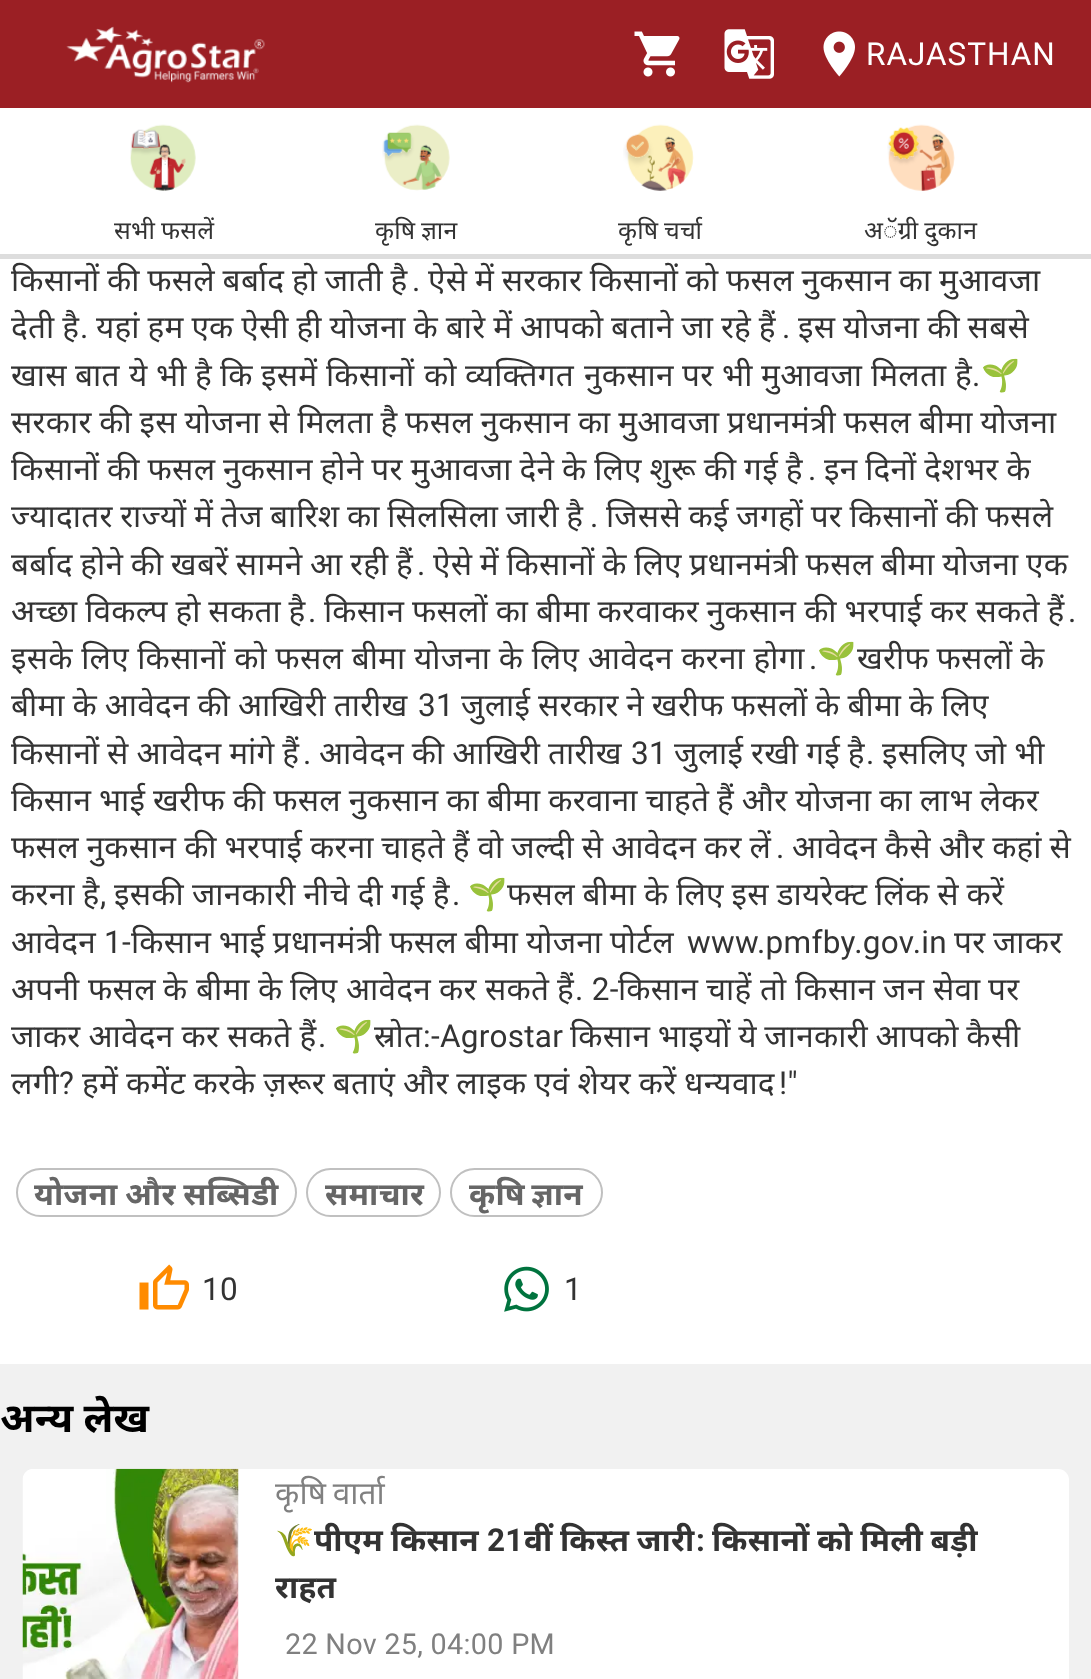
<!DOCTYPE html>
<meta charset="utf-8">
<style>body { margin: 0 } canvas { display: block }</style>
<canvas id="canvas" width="1091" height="1679"></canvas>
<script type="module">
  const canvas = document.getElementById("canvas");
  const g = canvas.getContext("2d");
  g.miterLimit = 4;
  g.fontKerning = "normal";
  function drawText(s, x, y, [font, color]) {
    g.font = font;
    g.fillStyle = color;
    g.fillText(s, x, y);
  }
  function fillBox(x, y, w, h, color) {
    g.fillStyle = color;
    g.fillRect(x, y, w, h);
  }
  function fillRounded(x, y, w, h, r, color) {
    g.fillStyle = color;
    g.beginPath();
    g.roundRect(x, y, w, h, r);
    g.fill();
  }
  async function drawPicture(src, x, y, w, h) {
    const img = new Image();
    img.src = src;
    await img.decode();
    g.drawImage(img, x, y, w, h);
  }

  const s1 = ["31.5px Roboto", "#FFFFFF"];
  const s2 = ["24.75px 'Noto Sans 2'", "#333333"];
  const s3 = ["31.5px Noto Sans", "#333333"];
  const s4 = ["31.5px Roboto", "#333333"];
  const s5 = ["31.5px Noto Color Emoji", "#333333"];
  const s6 = ["bold 31.5px Noto Sans", "#666666"];
  const s7 = ["bold 40.5px Noto Sans", "#000000"];
  const s8 = ["31.5px Noto Sans", "#808080"];
  const s9 = ["bold 31.5px Noto Color Emoji", "#333333"];
  const s10 = ["bold 31.5px Noto Sans", "#333333"];
  const s11 = ["bold 31.5px Roboto", "#333333"];
  const s12 = ["28.75px Roboto", "#808080"];

  fillBox(0, 0, 1091, 1679, "#F1F1F1");
  fillBox(0, 0, 1091, 108, "#9B1F24");
  await drawPicture("pic1.png", 66, 26, 199, 57);
  await drawPicture("pic2.png", 634, 31, 46, 46);
  await drawPicture("pic3.png", 724, 29, 50, 50);
  await drawPicture("pic4.png", 823, 31, 32, 46);
  g.letterSpacing = "1px";
  drawText("RAJASTHAN", 866, 65, s1);
  fillBox(0, 108, 1091, 146, "#FFFFFF");
  fillBox(0, 254, 1091, 5, "#DDDDDD");
  await drawPicture("pic5.png", 130, 124, 66, 67);
  g.letterSpacing = "0.25px";
  g.wordSpacing = "-0.75px";
  drawText("सभी फसलें", 114, 239, s2);
  await drawPicture("pic6.png", 382, 124, 68, 67);
  g.wordSpacing = "-1px";
  drawText("कृषि ज्ञान", 375, 239, s2);
  await drawPicture("pic7.png", 623, 124, 71, 67);
  drawText("कृषि चर्चा", 618, 239, s2);
  await drawPicture("pic8.png", 887, 124, 68, 67);
  drawText("अॅग्री दुकान", 864, 239, s2);
  fillBox(0, 259, 1091, 1105, "#FFFFFF");
  g.letterSpacing = "0.3px";
  g.wordSpacing = "-0.9px";
  drawText("किसानों की फसले बर्बाद हो जाती है", 11, 291, s3);
  g.wordSpacing = "0px";
  drawText(".", 412, 291, s4);
  g.wordSpacing = "-0.9px";
  drawText("ऐसे में सरकार किसानों को फसल नुकसान का मुआवजा", 428, 291, s3);
  g.save();
  g.beginPath();
  g.rect(11, 162, 1069, 945);
  g.clip();
  g.wordSpacing = "-0.75px";
  drawText("देती है", 11, 338, s3);
  g.restore();
  g.wordSpacing = "0px";
  drawText(".", 80, 338, s4);
  g.wordSpacing = "-0.75px";
  drawText("यहां हम एक ऐसी ही योजना के बारे में आपको बताने जा रहे हैं", 96, 338, s3);
  g.wordSpacing = "0px";
  drawText(".", 782, 338, s4);
  g.wordSpacing = "-0.75px";
  drawText("इस योजना की सबसे", 798, 338, s3);
  g.wordSpacing = "0px";
  drawText("खास", 11, 386, s3);
  drawText("बात", 75, 386, s3);
  drawText("ये", 129, 386, s3);
  drawText("भी", 156, 386, s3);
  drawText("है", 195, 386, s3);
  drawText("कि", 220, 386, s3);
  drawText("इसमें", 261, 386, s3);
  drawText("किसानों", 326, 386, s3);
  drawText("को", 424, 386, s3);
  drawText("व्यक्तिगत", 465, 386, s3);
  drawText("नुकसान", 584, 386, s3);
  drawText("पर", 682, 386, s3);
  drawText("भी", 722, 386, s3);
  drawText("मुआवजा", 761, 386, s3);
  drawText("मिलता", 871, 386, s3);
  drawText("है", 955, 386, s3);
  drawText(".", 972, 386, s4);
  drawText("🌱", 981, 386, s5);
  g.wordSpacing = "-0.9px";
  drawText("सरकार की इस योजना से मिलता है फसल नुकसान का मुआवजा प्रधानमंत्री फसल बीमा योजना", 11, 433, s3);
  g.wordSpacing = "-0.75px";
  drawText("किसानों की फसल नुकसान होने पर मुआवजा देने के लिए शुरू की गई है", 11, 480, s3);
  g.wordSpacing = "0px";
  drawText(".", 808, 480, s4);
  g.wordSpacing = "-0.75px";
  drawText("इन दिनों देशभर के", 824, 480, s3);
  g.wordSpacing = "-1px";
  drawText("ज्यादातर राज्यों में तेज बारिश का सिलसिला जारी है", 11, 527, s3);
  g.wordSpacing = "0px";
  drawText(".", 590, 527, s4);
  g.wordSpacing = "-1px";
  drawText("जिससे कई जगहों पर किसानों की फसले", 606, 527, s3);
  drawText("बर्बाद होने की खबरें सामने आ रही हैं", 11, 575, s3);
  g.wordSpacing = "0px";
  drawText(".", 417, 575, s4);
  g.wordSpacing = "-1px";
  drawText("ऐसे में किसानों के लिए प्रधानमंत्री फसल बीमा योजना एक", 433, 575, s3);
  g.wordSpacing = "-0.75px";
  drawText("अच्छा विकल्प हो सकता है", 11, 622, s3);
  g.wordSpacing = "0px";
  drawText(".", 308, 622, s4);
  g.wordSpacing = "-0.75px";
  drawText("किसान फसलों का बीमा करवाकर नुकसान की भरपाई कर सकते हैं", 324, 622, s3);
  g.wordSpacing = "0px";
  drawText(".", 1068, 622, s4);
  drawText("इसके लिए किसानों को फसल बीमा योजना के लिए आवेदन करना होगा", 11, 669, s3);
  drawText(".", 809, 669, s4);
  drawText("🌱", 817, 669, s5);
  g.wordSpacing = "-1px";
  drawText("खरीफ फसलों के", 857, 669, s3);
  g.save();
  g.beginPath();
  g.rect(11, 162, 1069, 945);
  g.clip();
  g.wordSpacing = "-0.75px";
  drawText("बीमा के आवेदन की आखिरी तारीख", 11, 716, s3);
  g.restore();
  g.wordSpacing = "0px";
  drawText("31", 418, 716, s4);
  g.wordSpacing = "-0.75px";
  drawText("जुलाई सरकार ने खरीफ फसलों के बीमा के लिए", 461, 716, s3);
  drawText("किसानों से आवेदन मांगे हैं", 11, 764, s3);
  g.wordSpacing = "0px";
  drawText(".", 303, 764, s4);
  g.wordSpacing = "-0.75px";
  drawText("आवेदन की आखिरी तारीख", 319, 764, s3);
  g.wordSpacing = "0px";
  drawText("31", 631, 764, s4);
  g.wordSpacing = "-0.75px";
  drawText("जुलाई रखी गई है", 674, 764, s3);
  g.wordSpacing = "0px";
  drawText(".", 866, 764, s4);
  g.wordSpacing = "-0.75px";
  drawText("इसलिए जो भी", 882, 764, s3);
  drawText("किसान भाई खरीफ की फसल नुकसान का बीमा करवाना चाहते हैं और योजना का लाभ लेकर", 11, 811, s3);
  drawText("फसल नुकसान की भरपाई करना चाहते हैं वो जल्दी से आवेदन कर लें", 11, 858, s3);
  g.wordSpacing = "0px";
  drawText(".", 776, 858, s4);
  g.wordSpacing = "-0.75px";
  drawText("आवेदन कैसे और कहां से", 792, 858, s3);
  g.wordSpacing = "-0.5px";
  drawText("करना है", 11, 905, s3);
  g.wordSpacing = "0px";
  drawText(",", 100, 905, s4);
  g.wordSpacing = "-0.5px";
  drawText("इसकी जानकारी नीचे दी गई है", 114, 905, s3);
  g.wordSpacing = "0px";
  drawText(".", 452, 905, s4);
  drawText("🌱", 468, 905, s5);
  g.wordSpacing = "-0.75px";
  drawText("फसल बीमा के लिए इस डायरेक्ट लिंक से करें", 507, 905, s3);
  g.wordSpacing = "0px";
  drawText("आवेदन", 11, 953, s3);
  drawText("1-", 104, 953, s4);
  g.wordSpacing = "-0.9px";
  drawText("किसान भाई प्रधानमंत्री फसल बीमा योजना पोर्टल", 131, 953, s3);
  g.wordSpacing = "0px";
  drawText("www.pmfby.gov.in", 687, 953, s4);
  g.wordSpacing = "-0.9px";
  drawText("पर जाकर", 954, 953, s3);
  g.wordSpacing = "0px";
  drawText("अपनी", 11, 1000, s3);
  drawText("फसल", 88, 1000, s3);
  drawText("के", 163, 1000, s3);
  drawText("बीमा", 196, 1000, s3);
  drawText("के", 258, 1000, s3);
  drawText("लिए", 290, 1000, s3);
  drawText("आवेदन", 346, 1000, s3);
  drawText("कर", 439, 1000, s3);
  drawText("सकते", 485, 1000, s3);
  drawText("हैं", 557, 1000, s3);
  drawText(". 2-", 575, 1000, s4);
  drawText("किसान", 618, 1000, s3);
  drawText("चाहें", 706, 1000, s3);
  drawText("तो", 760, 1000, s3);
  drawText("किसान", 795, 1000, s3);
  drawText("जन", 883, 1000, s3);
  drawText("सेवा", 933, 1000, s3);
  drawText("पर", 988, 1000, s3);
  g.wordSpacing = "-0.5px";
  drawText("जाकर आवेदन कर सकते हैं", 11, 1047, s3);
  g.wordSpacing = "0px";
  drawText(".", 318, 1047, s4);
  drawText("🌱", 334, 1047, s5);
  drawText("स्रोत", 374, 1047, s3);
  drawText(":-Agrostar", 423, 1047, s4);
  g.wordSpacing = "-1px";
  drawText("किसान भाइयों ये जानकारी आपको कैसी", 570, 1047, s3);
  g.wordSpacing = "0px";
  drawText("लगी", 11, 1094, s3);
  drawText("?", 59, 1094, s4);
  g.wordSpacing = "-0.75px";
  drawText("हमें कमेंट करके ज़रूर बताएं और लाइक एवं शेयर करें धन्यवाद", 82, 1094, s3);
  g.wordSpacing = "0px";
  drawText("!\"", 779, 1094, s4);
  g.beginPath();
  g.roundRect(17, 1169, 279, 47, 23.5);
  g.strokeStyle = "#C0C0C0";
  g.lineWidth = 2;
  g.stroke();
  g.wordSpacing = "-1px";
  drawText("योजना और सब्सिडी", 34, 1205, s6);
  g.beginPath();
  g.roundRect(307, 1169, 133, 47, 23.5);
  g.stroke();
  g.wordSpacing = "0px";
  drawText("समाचार", 325, 1205, s6);
  g.beginPath();
  g.roundRect(451, 1169, 151, 47, 23.5);
  g.stroke();
  g.wordSpacing = "-2px";
  drawText("कृषि ज्ञान", 469, 1205, s6);
  await drawPicture("pic9.png", 139, 1264, 50, 46);
  g.wordSpacing = "0px";
  drawText("10", 202, 1300, s4);
  await drawPicture("pic10.png", 504, 1266, 45, 46);
  drawText("1", 564, 1300, s4);
  g.wordSpacing = "-1px";
  drawText("अन्य लेख", 0, 1432, s7);
  fillRounded(23, 1469, 1046, 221, 11, "#FFFFFF");
  await drawPicture("pic11.png", 22, 1468, 217, 211);
  g.wordSpacing = "-2px";
  drawText("कृषि वार्ता", 275, 1504, s8);
  g.wordSpacing = "0px";
  drawText("🌾", 275, 1551, s9);
  g.wordSpacing = "-1px";
  drawText("पीएम किसान", 314, 1551, s10);
  g.wordSpacing = "0px";
  drawText("21", 487, 1551, s11);
  g.wordSpacing = "-1px";
  drawText("वीं किस्त जारी", 524, 1551, s10);
  g.wordSpacing = "0px";
  drawText(":", 696, 1551, s11);
  g.wordSpacing = "-1px";
  drawText("किसानों को मिली बड़ी", 712, 1551, s10);
  g.wordSpacing = "0px";
  drawText("राहत", 275, 1598, s10);
  drawText("22 Nov 25, 04:00 PM", 285, 1654, s12);
</script>
